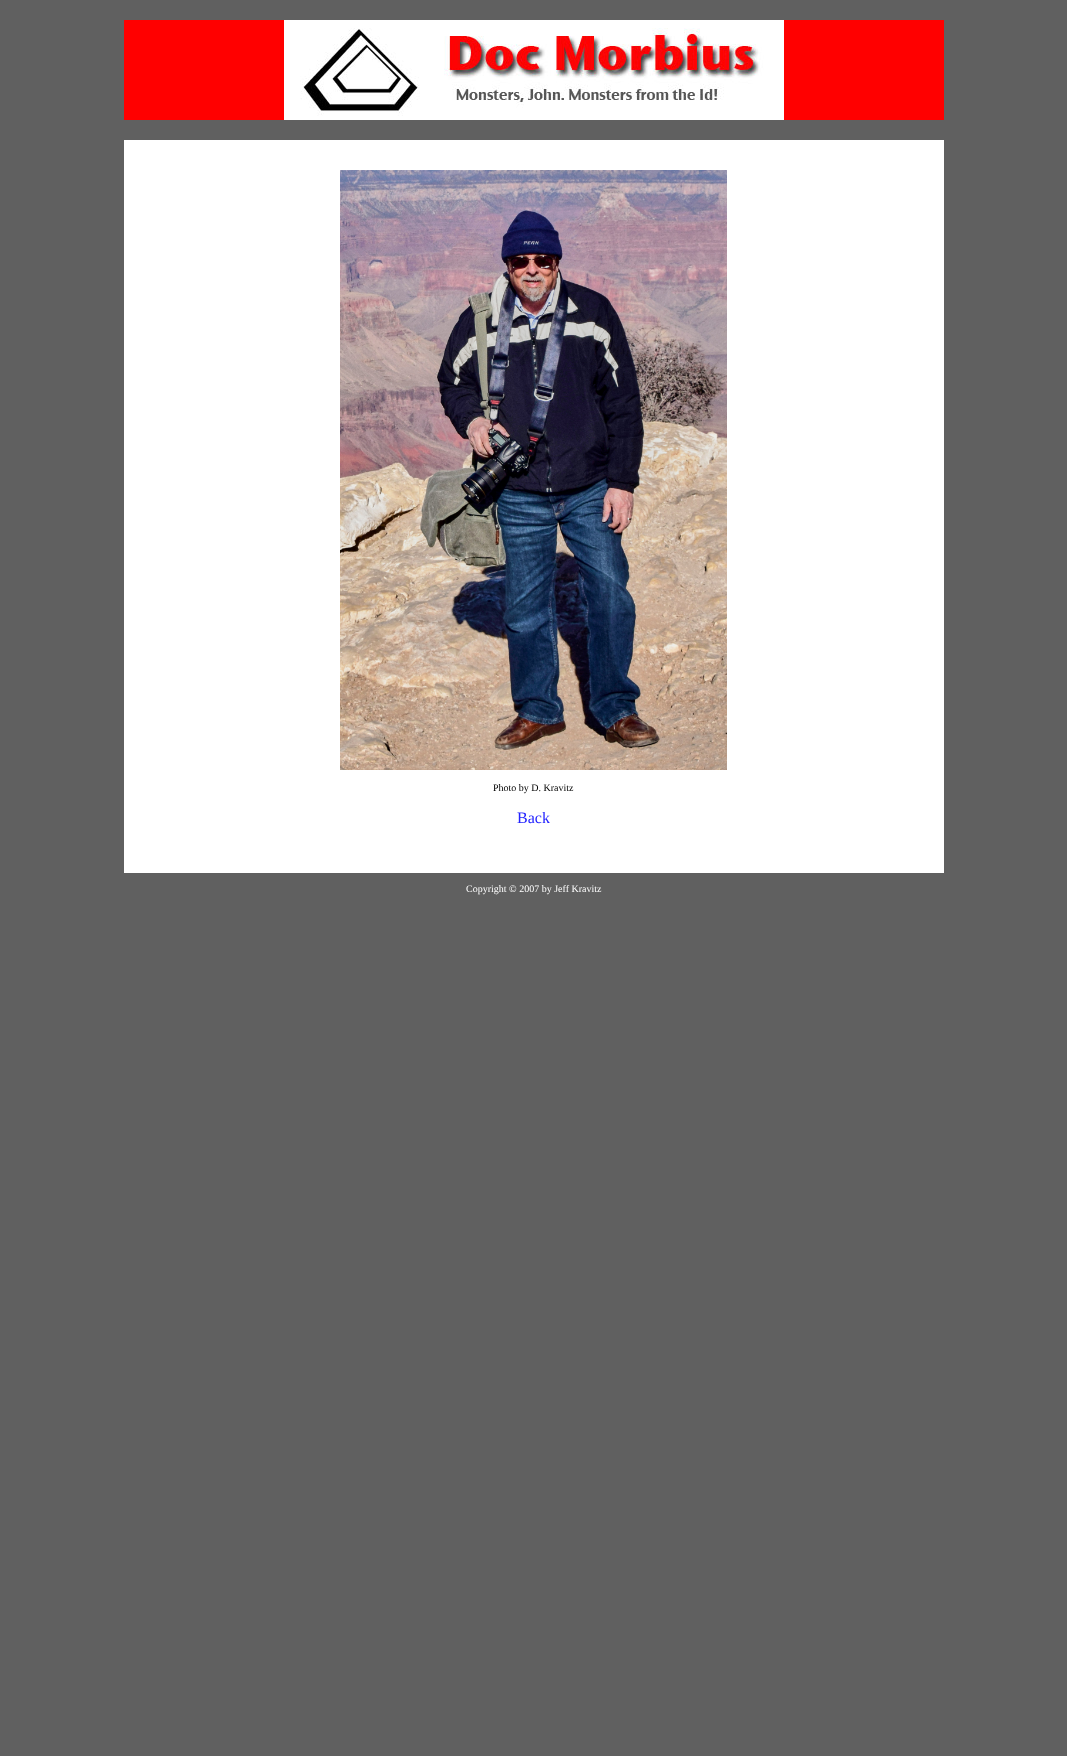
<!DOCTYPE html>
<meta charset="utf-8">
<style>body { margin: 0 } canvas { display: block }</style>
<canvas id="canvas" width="1067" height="1756"></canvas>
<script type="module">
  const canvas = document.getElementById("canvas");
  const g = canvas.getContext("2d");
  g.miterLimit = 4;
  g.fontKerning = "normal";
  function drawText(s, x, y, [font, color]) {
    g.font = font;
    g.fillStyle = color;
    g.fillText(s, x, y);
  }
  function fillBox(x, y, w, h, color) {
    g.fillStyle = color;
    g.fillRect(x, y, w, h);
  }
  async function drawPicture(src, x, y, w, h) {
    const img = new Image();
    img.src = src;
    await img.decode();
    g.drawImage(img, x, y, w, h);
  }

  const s1 = ["10px Liberation Serif", "#000000"];
  const s2 = ["16px Liberation Serif", "#2222FF"];
  const s3 = ["10px Liberation Serif", "#FFFFFF"];

  fillBox(0, 0, 1067, 1756, "#606060");
  fillBox(124, 20, 820, 100, "#FF0000");
  await drawPicture("pic1.png", 284, 20, 500, 100);
  fillBox(124, 140, 820, 733, "#FFFFFF");
  await drawPicture("pic2.png", 340, 170, 387, 600);
  drawText("Photo by D. Kravitz", 493, 791, s1);
  drawText("Back", 517, 823, s2);
  drawText("Copyright © 2007 by Jeff Kravitz", 466, 892, s3);
</script>
